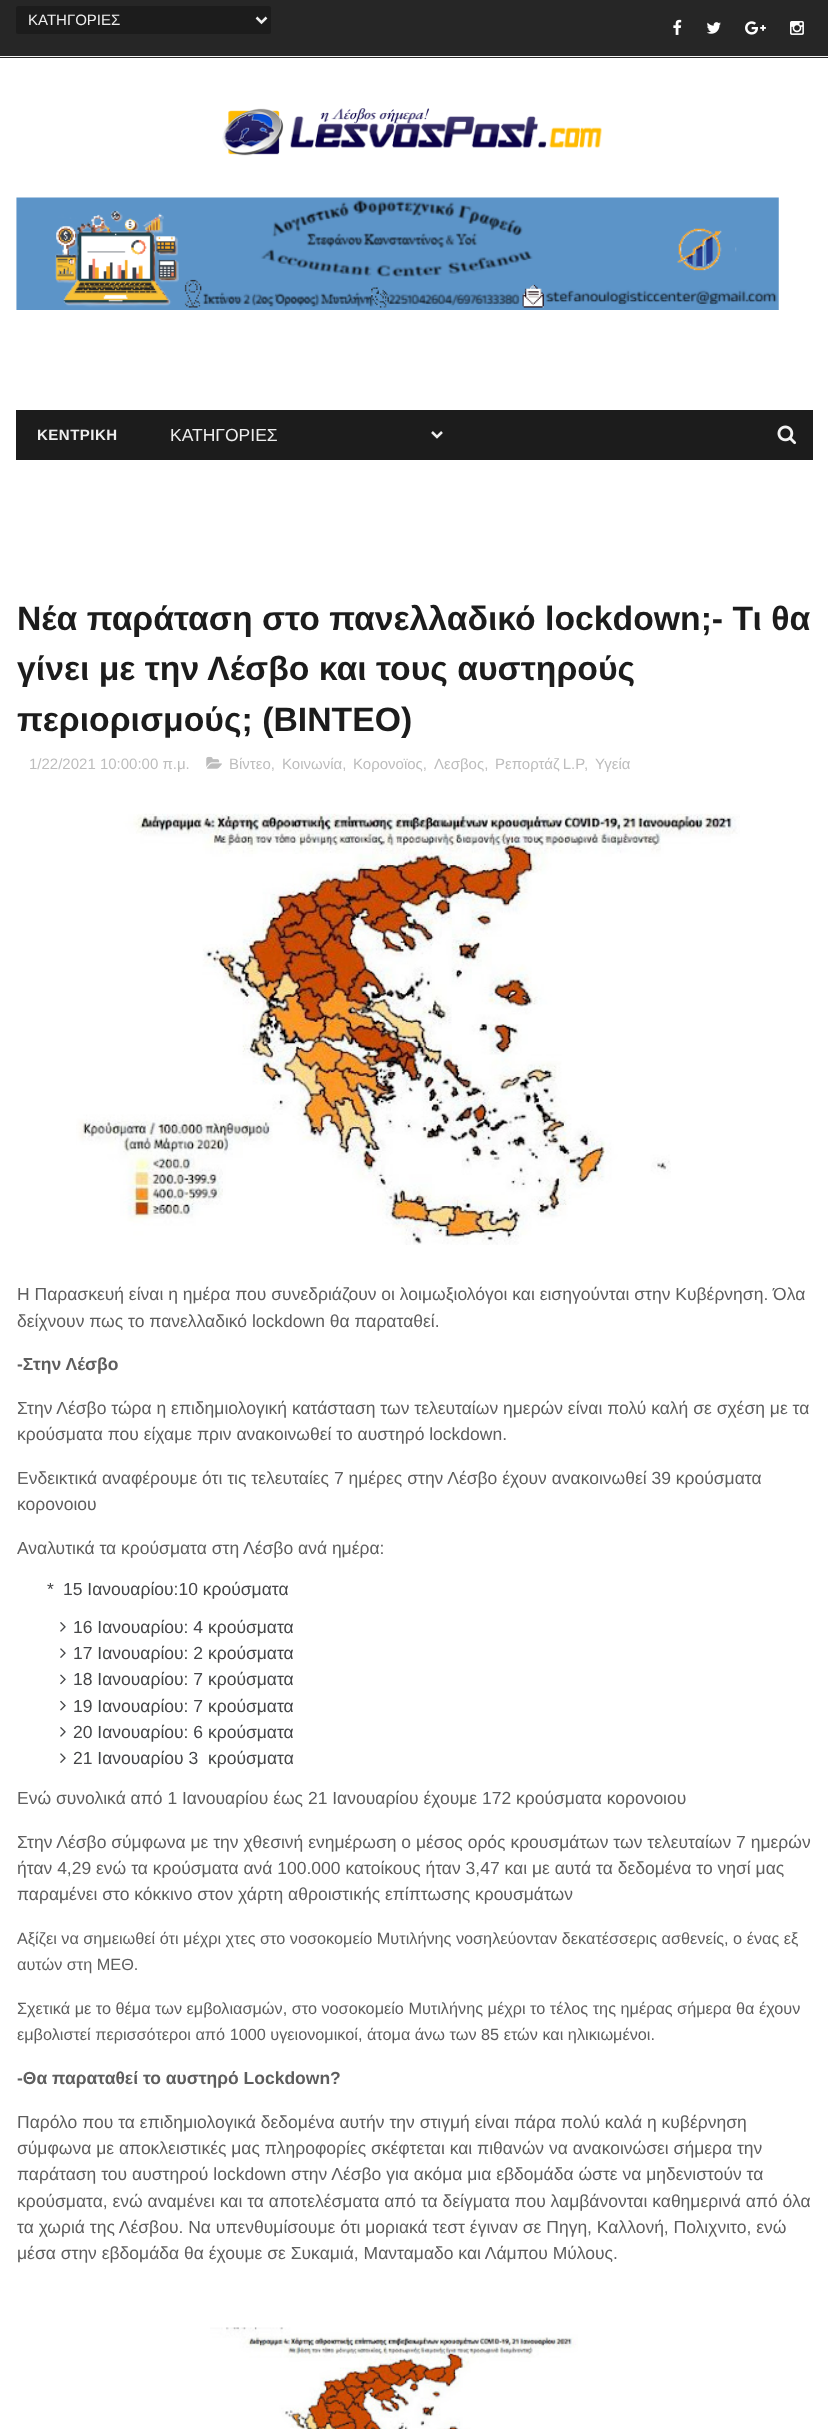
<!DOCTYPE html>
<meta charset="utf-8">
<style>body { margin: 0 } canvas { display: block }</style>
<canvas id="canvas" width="828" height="2429"></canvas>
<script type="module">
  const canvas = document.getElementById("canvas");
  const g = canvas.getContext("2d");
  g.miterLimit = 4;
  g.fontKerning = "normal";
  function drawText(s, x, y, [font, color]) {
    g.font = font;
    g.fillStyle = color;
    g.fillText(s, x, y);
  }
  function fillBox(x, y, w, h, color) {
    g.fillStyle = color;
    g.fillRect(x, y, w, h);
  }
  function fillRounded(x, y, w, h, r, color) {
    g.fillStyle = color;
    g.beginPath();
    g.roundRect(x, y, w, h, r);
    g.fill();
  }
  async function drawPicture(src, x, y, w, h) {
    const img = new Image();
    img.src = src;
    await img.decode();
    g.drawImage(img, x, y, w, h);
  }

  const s1 = ["15px Liberation Sans", "#EEEEEE"];
  const s2 = ["bold 15px Liberation Sans", "#EEEEEE"];
  const s3 = ["17.5px Liberation Sans", "#EEEEEE"];
  const s4 = ["bold 33.75px Liberation Sans", "#1C1C1C"];
  const s5 = ["15px Liberation Sans", "#BDBDBD"];
  const s6 = ["17.5px Liberation Sans", "#5E5E5E"];
  const s7 = ["bold 17.5px Liberation Sans", "#5E5E5E"];
  const s8 = ["17.5px Liberation Sans", "#454648"];
  const s9 = ["16.25px Liberation Sans", "#5E5E5E"];

  fillBox(0, 0, 828, 2429, "#FFFFFF");
  fillBox(0, 0, 828, 58, "#262626");
  fillBox(0, 56, 828, 1, "#F5F5F5");
  fillRounded(16, 6, 255, 28, 2.5, "#1C1C1C");
  g.beginPath();
  g.moveTo(256.5, 17.5);
  g.lineTo(261.5, 22.5);
  g.lineTo(266.5, 17.5);
  g.strokeStyle = "#EEEEEE";
  g.lineWidth = 2.5;
  g.stroke();
  drawText("ΚΑΤΗΓΟΡΙΕΣ", 28, 25, s1);
  await drawPicture("pic1.png", 673, 19, 9, 16);
  await drawPicture("pic2.png", 706, 22, 15, 12);
  await drawPicture("pic3.png", 745, 21, 21, 14);
  await drawPicture("pic4.png", 790, 21, 14, 14);
  await drawPicture("pic5.png", 222, 108, 380, 48);
  await drawPicture("pic6.png", 16, 197, 763, 113);
  fillBox(16, 410, 797, 50, "#1C1C1C");
  g.letterSpacing = "0.5px";
  drawText("ΚΕΝΤΡΙΚΗ", 37, 440, s2);
  g.beginPath();
  g.moveTo(432, 432);
  g.lineTo(437, 437);
  g.lineTo(442, 432);
  g.stroke();
  g.letterSpacing = "0px";
  drawText("ΚΑΤΗΓΟΡΙΕΣ", 170, 441, s3);
  await drawPicture("pic7.png", 777, 425, 20, 20);
  drawText("Νέα παράταση στο πανελλαδικό lockdown;- Τι θα", 17, 630, s4);
  drawText("γίνει με την Λέσβο και τους αυστηρούς", 17, 680, s4);
  drawText("περιορισμούς; (ΒΙΝΤΕΟ)", 17, 731, s4);
  drawText("1/22/2021 10:00:00 π.μ.", 29, 769, s5);
  await drawPicture("pic8.png", 206, 756, 16, 13);
  drawText("Βίντεο,", 229, 769, s5);
  drawText("Κοινωνία,", 282, 769, s5);
  drawText("Κορονοϊος,", 353, 769, s5);
  drawText("Λεσβος,", 434, 769, s5);
  g.wordSpacing = "-1px";
  drawText("Ρεπορτάζ L.P", 495, 769, s5);
  g.wordSpacing = "0px";
  drawText(",", 584, 769, s5);
  drawText("Υγεία", 595, 769, s5);
  await drawPicture("pic9.png", 76, 813, 664, 432);
  drawText("Η Παρασκευή είναι η ημέρα που συνεδριάζουν οι λοιμωξιολόγοι και εισηγούνται στην Κυβέρνηση. Όλα", 17, 1300, s6);
  drawText("δείχνουν πως το πανελλαδικό lockdown θα παραταθεί.", 17, 1327, s6);
  drawText("-Στην Λέσβο", 17, 1370, s7);
  drawText("Στην Λέσβο τώρα η επιδημιολογική κατάσταση των τελευταίων ημερών είναι πολύ καλή σε σχέση με τα", 17, 1414, s6);
  drawText("κρούσματα που είχαμε πριν ανακοινωθεί το αυστηρό lockdown.", 17, 1440, s6);
  drawText("Ενδεικτικά αναφέρουμε ότι τις τελευταίες 7 ημέρες στην Λέσβο έχουν ανακοινωθεί 39 κρούσματα", 17, 1484, s6);
  drawText("κορονοιου", 17, 1510, s6);
  drawText("Αναλυτικά τα κρούσματα στη Λέσβο ανά ημέρα:", 17, 1554, s6);
  drawText("*", 47, 1595, s8);
  drawText("15 Ιανουαρίου:10 κρούσματα", 63, 1595, s8);
  await drawPicture("pic10.png", 60, 1622, 6, 10);
  drawText("16 Ιανουαρίου: 4 κρούσματα", 73, 1633, s8);
  await drawPicture("pic11.png", 60, 1648, 6, 10);
  drawText("17 Ιανουαρίου: 2 κρούσματα", 73, 1659, s8);
  await drawPicture("pic12.png", 60, 1674, 6, 11);
  drawText("18 Ιανουαρίου: 7 κρούσματα", 73, 1685, s8);
  await drawPicture("pic13.png", 60, 1700, 6, 11);
  drawText("19 Ιανουαρίου: 7 κρούσματα", 73, 1712, s8);
  await drawPicture("pic10.png", 60, 1727, 6, 10);
  drawText("20 Ιανουαρίου: 6 κρούσματα", 73, 1738, s8);
  await drawPicture("pic11.png", 60, 1753, 6, 10);
  drawText("21 Ιανουαρίου 3", 73, 1764, s8);
  drawText("κρούσματα", 208, 1764, s8);
  drawText("Ενώ συνολικά από 1 Ιανουαρίου έως 21 Ιανουαρίου έχουμε 172 κρούσματα κορονοιου", 17, 1804, s6);
  drawText("Στην Λέσβο σύμφωνα με την χθεσινή ενημέρωση ο μέσος ορός κρουσμάτων των τελευταίων 7 ημερών", 17, 1848, s6);
  drawText("ήταν 4,29 ενώ τα κρούσματα ανά 100.000 κατοίκους ήταν 3,47 και με αυτά τα δεδομένα το νησί μας", 17, 1874, s6);
  drawText("παραμένει στο κόκκινο στον χάρτη αθροιστικής επίπτωσης κρουσμάτων", 17, 1900, s6);
  drawText("Αξίζει να σημειωθεί ότι μέχρι χτες στο νοσοκομείο Μυτιλήνης νοσηλεύονταν δεκατέσσερις ασθενείς, ο ένας εξ", 17, 1944, s9);
  drawText("αυτών στη ΜΕΘ.", 17, 1970, s9);
  drawText("Σχετικά με το θέμα των εμβολιασμών, στο νοσοκομείο Μυτιλήνης μέχρι το τέλος της ημέρας σήμερα θα έχουν", 17, 2014, s9);
  drawText("εμβολιστεί περισσότεροι από 1000 υγειονομικοί, άτομα άνω των 85 ετών και ηλικιωμένοι.", 17, 2040, s9);
  drawText("-Θα παραταθεί το αυστηρό Lockdown?", 17, 2084, s7);
  drawText("Παρόλο που τα επιδημιολογικά δεδομένα αυτήν την στιγμή είναι πάρα πολύ καλά η κυβέρνηση", 17, 2128, s6);
  drawText("σύμφωνα με αποκλειστικές μας πληροφορίες σκέφτεται και πιθανών να ανακοινώσει σήμερα την", 17, 2154, s6);
  drawText("παράταση του αυστηρού lockdown στην Λέσβο για ακόμα μια εβδομάδα ώστε να μηδενιστούν τα", 17, 2180, s6);
  drawText("κρούσματα, ενώ αναμένει και τα αποτελέσματα από τα δείγματα που λαμβάνονται καθημερινά από όλα", 17, 2207, s6);
  drawText("τα χωριά της Λέσβου. Να υπενθυμίσουμε ότι μοριακά τεστ έγιναν σε Πηγη, Καλλονή, Πολιχνιτο, ενώ", 17, 2233, s6);
  drawText("μέσα στην εβδομάδα θα έχουμε σε Συκαμιά, Μανταμαδο και Λάμπου Μύλους.", 17, 2259, s6);
  await drawPicture("pic14.png", 210, 2327, 368, 102);
</script>
